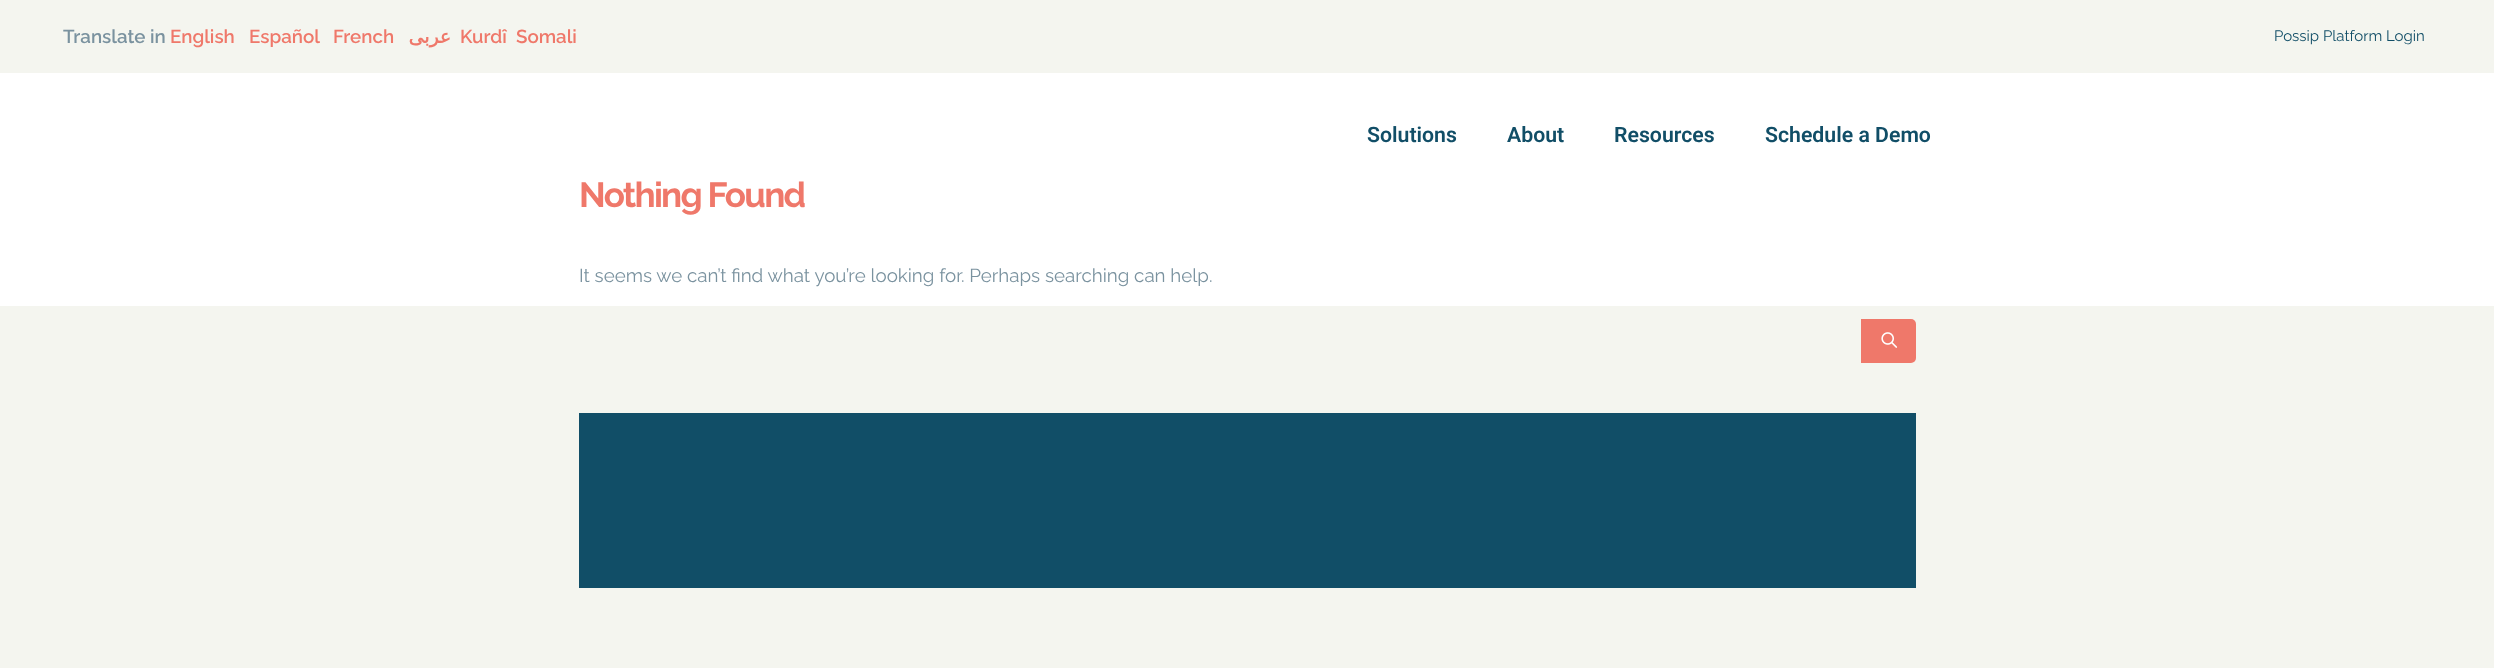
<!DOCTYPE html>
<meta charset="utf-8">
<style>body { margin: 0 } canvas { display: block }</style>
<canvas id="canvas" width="2494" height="668"></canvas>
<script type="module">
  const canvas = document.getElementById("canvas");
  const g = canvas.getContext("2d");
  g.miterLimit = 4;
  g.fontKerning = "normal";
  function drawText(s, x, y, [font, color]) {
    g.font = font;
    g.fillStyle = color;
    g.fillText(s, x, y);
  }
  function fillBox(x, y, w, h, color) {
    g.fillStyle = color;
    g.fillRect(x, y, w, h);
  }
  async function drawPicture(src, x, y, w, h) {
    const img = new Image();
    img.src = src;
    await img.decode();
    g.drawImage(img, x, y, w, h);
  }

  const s1 = ["600 18.75px Raleway", "#7A929F"];
  const s2 = ["600 18.75px Raleway", "#EF786A"];
  const s3 = ["bold 18.75px DejaVu Sans", "#EF786A"];
  const s4 = ["15px Raleway", "#114E67"];
  const s5 = ["600 21.25px Roboto", "#114E67"];
  const s6 = ["bold 35px Raleway", "#EF786A"];
  const s7 = ["18.75px Raleway", "#7A929F"];

  fillBox(0, 0, 2494, 668, "#FFFFFF");
  fillBox(0, 0, 2494, 73, "#F4F5EF");
  drawText("Translate in", 63, 43, s1);
  drawText("English", 170, 43, s2);
  drawText("Español", 249, 43, s2);
  drawText("French", 333, 43, s2);
  g.direction = "rtl";
  drawText("عربى", 451, 43, s3);
  g.direction = "ltr";
  drawText("Kurdî", 460, 43, s2);
  drawText("Somali", 516, 43, s2);
  drawText("Possip Platform Login", 2274, 41, s4);
  drawText("Solutions", 1367, 142, s5);
  drawText("About", 1507, 142, s5);
  drawText("Resources", 1614, 142, s5);
  drawText("Schedule a Demo", 1765, 142, s5);
  g.letterSpacing = "-1.75px";
  drawText("Nothing Found", 579, 207, s6);
  g.letterSpacing = "0px";
  drawText("It seems we can’t find what you’re looking for. Perhaps searching can help.", 579, 282, s7);
  fillBox(0, 306, 2494, 362, "#F4F5EF");
  g.fillStyle = "#EF786A";
  g.beginPath();
  g.roundRect(1861, 319, 55, 44, [0, 5, 5, 0]);
  g.fill();
  await drawPicture("pic1.png", 1881, 332, 17, 16);
  fillBox(579, 413, 1337, 175, "#114E67");
</script>
